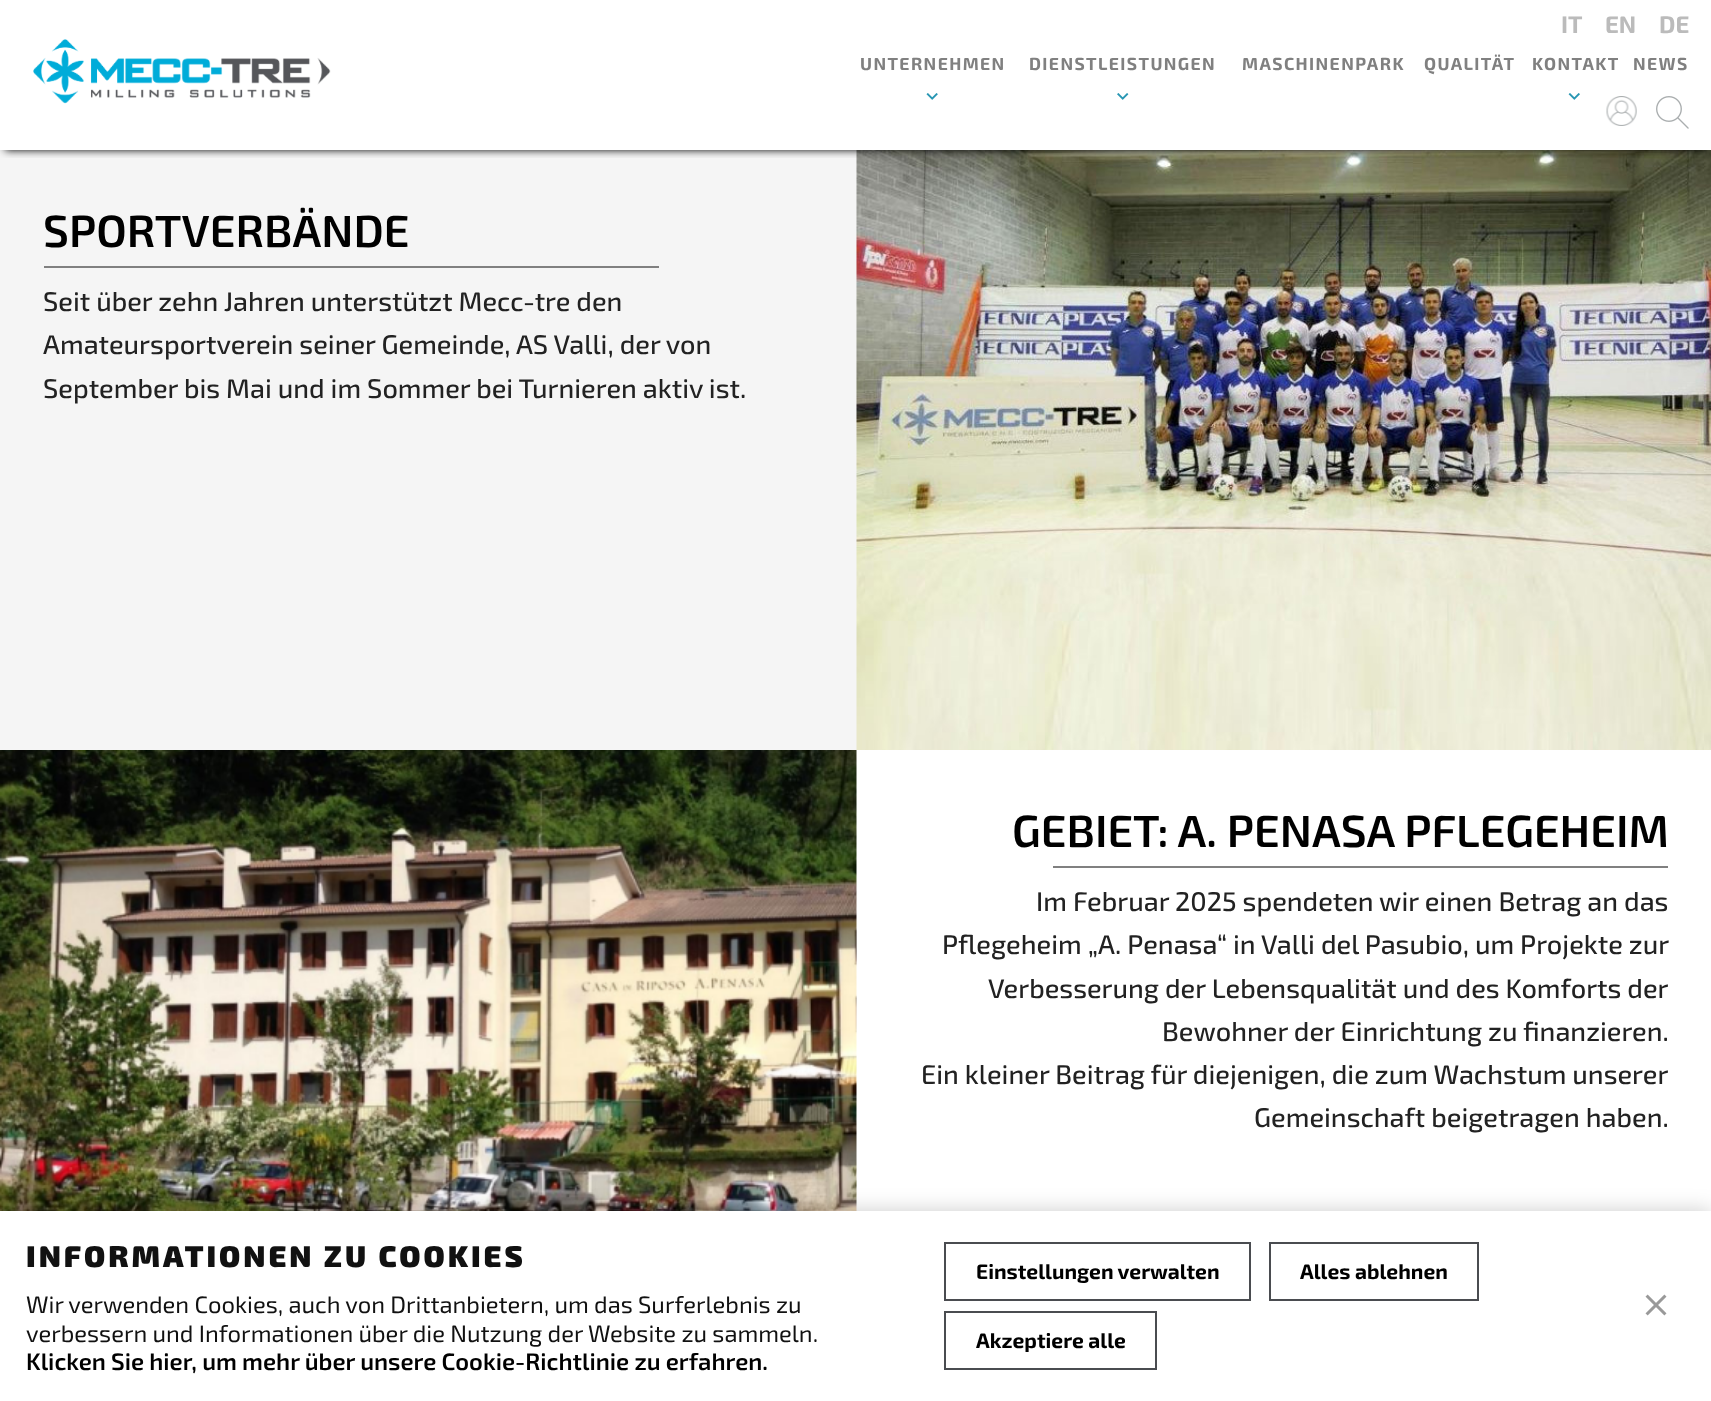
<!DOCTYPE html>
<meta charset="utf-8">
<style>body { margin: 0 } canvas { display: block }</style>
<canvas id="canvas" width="1711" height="1401"></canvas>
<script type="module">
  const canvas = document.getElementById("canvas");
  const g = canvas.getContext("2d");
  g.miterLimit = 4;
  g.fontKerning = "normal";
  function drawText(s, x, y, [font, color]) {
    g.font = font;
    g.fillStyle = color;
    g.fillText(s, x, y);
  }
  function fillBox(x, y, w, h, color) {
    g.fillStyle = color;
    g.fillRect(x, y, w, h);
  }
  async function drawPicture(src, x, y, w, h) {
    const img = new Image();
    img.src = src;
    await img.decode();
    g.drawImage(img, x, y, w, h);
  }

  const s1 = ["bold 24px 'Exo 2'", "#BBBBBB"];
  const s2 = ["bold 17.5px 'Exo 2'", "#808080"];
  const s3 = ["600 45px 'Exo 2'", "#000000"];
  const s4 = ["500 27px 'Exo 2'", "#222222"];
  const s5 = ["900 30px 'Exo 2'", "#111111"];
  const s6 = ["23.75px 'Exo 2'", "#111111"];
  const s7 = ["600 23.75px 'Exo 2'", "#000000"];
  const s8 = ["bold 21px 'Exo 2'", "#000000"];

  fillBox(0, 0, 1711, 1401, "#FFFFFF");
  fillBox(0, 150, 857, 600, "#F5F5F5");
  await drawPicture("pic7.png", 856, 150, 855, 600);
  g.save();
  g.beginPath();
  g.rect(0, 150, 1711, 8);
  g.clip();
  g.fillStyle = "#000000";
  g.filter = "blur(4px)";
  g.beginPath();
  g.rect(5, 9, 1702, 141);
  g.fill();
  g.filter = "none";
  g.restore();
  await drawPicture("pic1.png", 33, 39, 298, 65);
  drawText("IT", 1561, 33, s1);
  drawText("EN", 1605, 33, s1);
  drawText("DE", 1659, 33, s1);
  g.letterSpacing = "1.4px";
  drawText("UNTERNEHMEN", 860, 70, s2);
  await drawPicture("pic2.png", 926, 93, 12, 7);
  drawText("DIENSTLEISTUNGEN", 1029, 70, s2);
  await drawPicture("pic3.png", 1117, 93, 12, 7);
  drawText("MASCHINENPARK", 1242, 70, s2);
  drawText("QUALITÄT", 1424, 70, s2);
  drawText("KONTAKT", 1532, 70, s2);
  await drawPicture("pic4.png", 1568, 93, 12, 7);
  drawText("NEWS", 1633, 70, s2);
  await drawPicture("pic5.png", 1606, 96, 31, 30);
  await drawPicture("pic6.png", 1656, 96, 33, 33);
  g.letterSpacing = "0px";
  drawText("SPORTVERBÄNDE", 43, 247, s3);
  fillBox(44, 266, 615, 2, "#808080");
  drawText("Seit über zehn Jahren unterstützt Mecc-tre den", 43, 311, s4);
  drawText("Amateursportverein seiner Gemeinde, AS Valli, der von", 43, 354, s4);
  drawText("September bis Mai und im Sommer bei Turnieren aktiv ist.", 43, 398, s4);
  await drawPicture("pic8.png", 0, 750, 857, 461);
  drawText("GEBIET: A. PENASA PFLEGEHEIM", 1012, 847, s3);
  fillBox(1053, 866, 615, 2, "#808080");
  drawText("Im Februar 2025 spendeten wir einen Betrag an das", 1036, 911, s4);
  drawText("Pflegeheim „A. Penasa“ in Valli del Pasubio, um Projekte zur", 942, 954, s4);
  drawText("Verbesserung der Lebensqualität und des Komforts der", 988, 998, s4);
  drawText("Bewohner der Einrichtung zu finanzieren.", 1162, 1041, s4);
  drawText("Ein kleiner Beitrag für diejenigen, die zum Wachstum unserer", 921, 1084, s4);
  drawText("Gemeinschaft beigetragen haben.", 1254, 1127, s4);
  g.fillStyle = "rgba(0, 0, 0, 0.2)";
  g.filter = "blur(10.5px)";
  g.beginPath();
  g.rect(0, 1211, 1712, 190);
  g.fill();
  g.filter = "none";
  fillBox(0, 1211, 1711, 190, "#FFFFFF");
  g.letterSpacing = "3px";
  drawText("INFORMATIONEN ZU COOKIES", 26, 1267, s5);
  g.letterSpacing = "0px";
  drawText("Wir verwenden Cookies, auch von Drittanbietern, um das Surferlebnis zu", 26, 1313, s6);
  drawText("verbessern und Informationen über die Nutzung der Website zu sammeln.", 26, 1342, s6);
  drawText("Klicken Sie hier, um mehr über unsere Cookie-Richtlinie zu erfahren.", 26, 1370, s7);
  g.strokeStyle = "#4A4C50";
  g.lineWidth = 2;
  g.strokeRect(945, 1243, 305, 57);
  drawText("Einstellungen verwalten", 976, 1279, s8);
  g.strokeRect(1270, 1243, 208, 57);
  drawText("Alles ablehnen", 1300, 1279, s8);
  g.strokeRect(945, 1312, 211, 57);
  drawText("Akzeptiere alle", 976, 1348, s8);
  await drawPicture("pic9.png", 1645, 1294, 22, 22);
</script>
